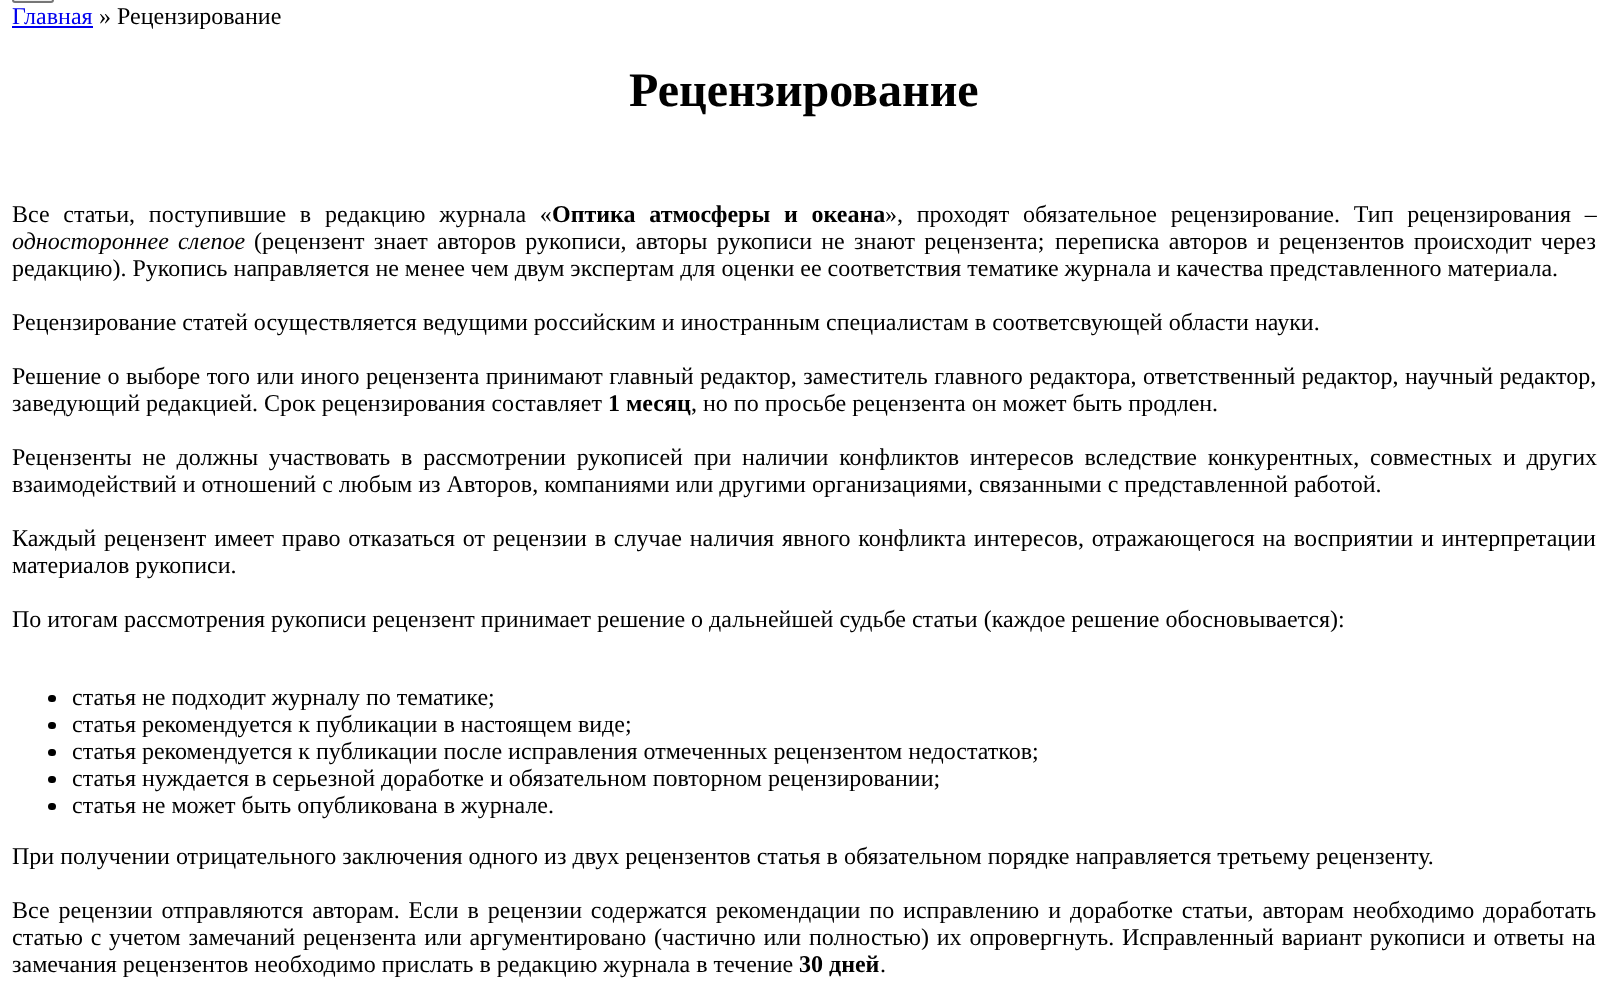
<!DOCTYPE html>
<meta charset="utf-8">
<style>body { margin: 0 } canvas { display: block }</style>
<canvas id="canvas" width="1607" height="997"></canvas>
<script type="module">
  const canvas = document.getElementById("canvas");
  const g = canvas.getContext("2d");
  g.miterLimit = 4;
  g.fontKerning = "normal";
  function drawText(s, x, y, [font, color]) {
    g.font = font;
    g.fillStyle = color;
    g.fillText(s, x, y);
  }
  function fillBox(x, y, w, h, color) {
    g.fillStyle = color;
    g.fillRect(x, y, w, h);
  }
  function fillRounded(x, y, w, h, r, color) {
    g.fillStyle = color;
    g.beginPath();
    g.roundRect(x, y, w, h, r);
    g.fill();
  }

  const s1 = ["24px Liberation Serif", "#0000EE"];
  const s2 = ["24px Liberation Serif", "#000000"];
  const s3 = ["bold 48px Liberation Serif", "#000000"];
  const s4 = ["bold 24px Liberation Serif", "#000000"];
  const s5 = ["italic 24px Liberation Serif", "#000000"];

  fillBox(0, 0, 1607, 997, "#FFFFFF");
  g.fillStyle = "#EFEFEF";
  g.beginPath();
  g.roundRect(13, -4, 40, 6, 2);
  g.fill();
  g.strokeStyle = "#767676";
  g.lineWidth = 2;
  g.stroke();
  drawText("Главная", 12, 24, s1);
  fillBox(12, 26, 81, 2, "#0000EE");
  drawText("» Рецензирование", 99, 24, s2);
  drawText("Рецензирование", 629, 106, s3);
  g.wordSpacing = "7.75px";
  drawText("Все статьи, поступившие в редакцию журнала «", 12, 222, s2);
  drawText("Оптика атмосферы и океана", 552, 222, s4);
  drawText("», проходят обязательное рецензирование. Тип рецензирования –", 885, 222, s2);
  g.wordSpacing = "3.25px";
  drawText("одностороннее слепое", 12, 249, s5);
  drawText("(рецензент знает авторов рукописи, авторы рукописи не знают рецензента;", 254, 249, s2);
  drawText("переписка авторов и рецензентов происходит через", 1055, 249, s2);
  g.wordSpacing = "0px";
  drawText("редакцию). Рукопись направляется не менее чем двум экспертам для оценки ее соответствия тематике журнала и качества представленного материала.", 12, 276, s2);
  drawText("Рецензирование статей осуществляется ведущими российским и иностранным специалистам в соответсвующей области науки.", 12, 330, s2);
  g.wordSpacing = "0.4px";
  drawText("Решение о выборе того или иного рецензента принимают главный редактор, заместитель главного редактора, ответственный редактор, научный редактор,", 12, 384, s2);
  g.wordSpacing = "0px";
  drawText("заведующий редакцией. Срок рецензирования составляет", 12, 411, s2);
  drawText("1 месяц", 608, 411, s4);
  drawText(", но по просьбе рецензента он может быть продлен.", 691, 411, s2);
  g.wordSpacing = "4.75px";
  drawText("Рецензенты не должны участвовать в рассмотрении рукописей при наличии конфликтов интересов вследствие конкурентных, совместных и других", 12, 465, s2);
  g.wordSpacing = "0px";
  drawText("взаимодействий и отношений с любым из Авторов, компаниями или другими организациями, связанными с представленной работой.", 12, 492, s2);
  g.wordSpacing = "1.8px";
  drawText("Каждый рецензент имеет право отказаться от рецензии в случае наличия явного конфликта интересов, отражающегося на восприятии и интерпретации", 12, 546, s2);
  g.wordSpacing = "0px";
  drawText("материалов рукописи.", 12, 573, s2);
  drawText("По итогам рассмотрения рукописи рецензент принимает решение о дальнейшей судьбе статьи (каждое решение обосновывается):", 12, 627, s2);
  fillRounded(48, 695, 8, 7, 3.5, "#000000");
  drawText("статья не подходит журналу по тематике;", 72, 705, s2);
  fillRounded(48, 722, 8, 7, 3.5, "#000000");
  drawText("статья рекомендуется к публикации в настоящем виде;", 72, 732, s2);
  fillRounded(48, 749, 8, 7, 3.5, "#000000");
  drawText("статья рекомендуется к публикации после исправления отмеченных рецензентом недостатков;", 72, 759, s2);
  fillRounded(48, 776, 8, 7, 3.5, "#000000");
  drawText("статья нуждается в серьезной доработке и обязательном повторном рецензировании;", 72, 786, s2);
  fillRounded(48, 803, 8, 7, 3.5, "#000000");
  drawText("статья не может быть опубликована в журнале.", 72, 813, s2);
  drawText("При получении отрицательного заключения одного из двух рецензентов статья в обязательном порядке направляется третьему рецензенту.", 12, 864, s2);
  g.wordSpacing = "2.9px";
  drawText("Все рецензии отправляются авторам. Если в рецензии содержатся рекомендации по исправлению и доработке статьи, авторам необходимо доработать", 12, 918, s2);
  g.wordSpacing = "1.8px";
  drawText("статью с учетом замечаний рецензента или аргументировано (частично или полностью) их опровергнуть. Исправленный вариант рукописи и ответы на", 12, 945, s2);
  g.wordSpacing = "0px";
  drawText("замечания рецензентов необходимо прислать в редакцию журнала в течение", 12, 972, s2);
  drawText("30 дней", 799, 972, s4);
  drawText(".", 880, 972, s2);
</script>
